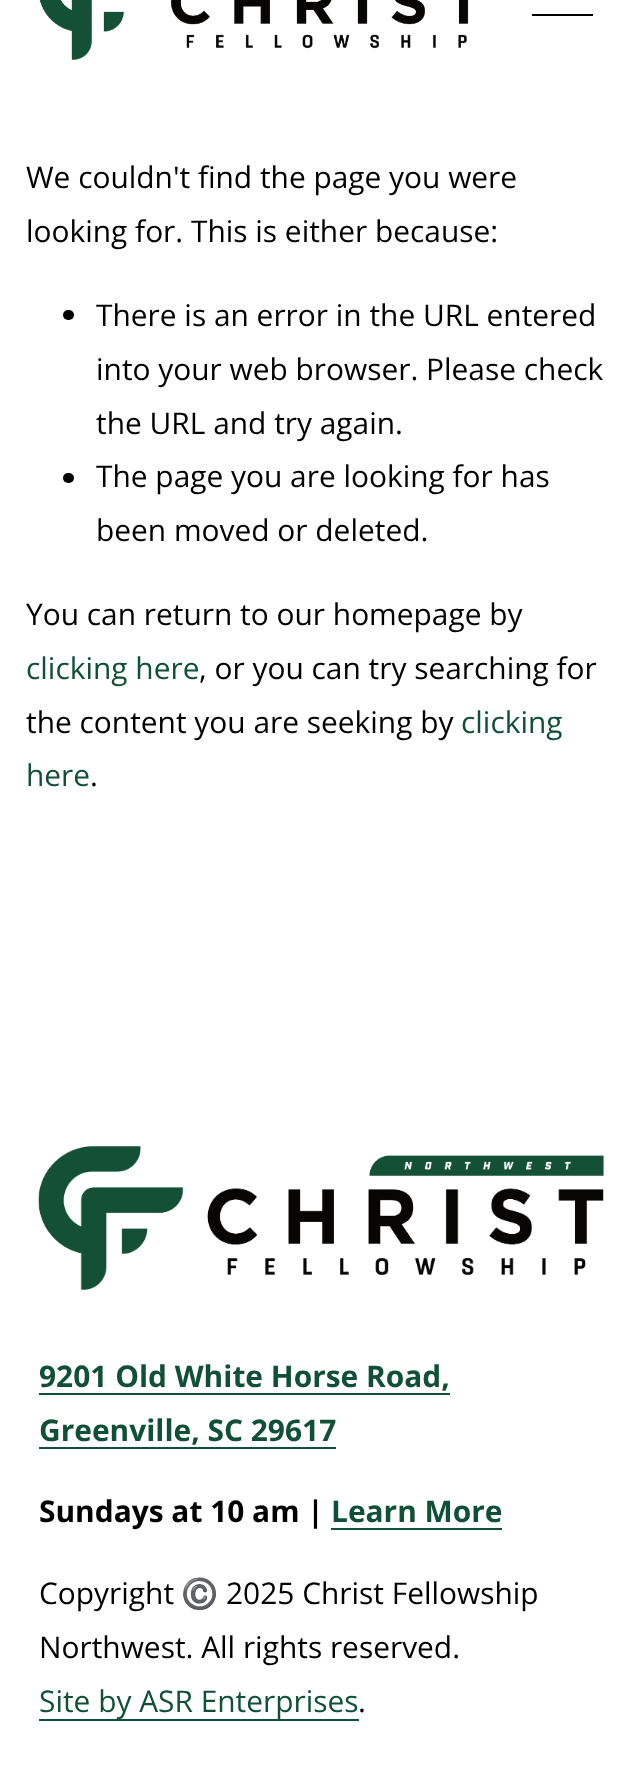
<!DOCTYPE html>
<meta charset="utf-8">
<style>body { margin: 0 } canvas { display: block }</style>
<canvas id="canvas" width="641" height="1783"></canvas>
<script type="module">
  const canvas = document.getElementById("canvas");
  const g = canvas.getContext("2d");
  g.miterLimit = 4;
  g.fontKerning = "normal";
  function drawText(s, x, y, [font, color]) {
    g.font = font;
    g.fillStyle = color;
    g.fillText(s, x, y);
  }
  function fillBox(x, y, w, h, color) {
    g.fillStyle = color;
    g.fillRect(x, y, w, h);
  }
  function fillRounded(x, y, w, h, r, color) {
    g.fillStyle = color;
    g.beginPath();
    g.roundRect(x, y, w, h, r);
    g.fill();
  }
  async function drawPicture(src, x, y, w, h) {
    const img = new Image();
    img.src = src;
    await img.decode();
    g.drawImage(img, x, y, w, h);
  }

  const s1 = ["29.9px Open Sans", "#000000"];
  const s2 = ["29.9px Open Sans", "#105036"];
  const s3 = ["bold 29.9px Open Sans", "#105036"];
  const s4 = ["bold 29.9px Open Sans", "#000000"];
  const s5 = ["29.9px Noto Color Emoji", "#000000"];

  fillBox(0, 0, 641, 1783, "#FFFFFF");
  await drawPicture("pic1.png", 39, 0, 430, 60);
  fillBox(532, 14, 61, 2, "#000000");
  drawText("We couldn't find the page you were", 26, 188, s1);
  drawText("looking for. This is either because:", 26, 242, s1);
  fillRounded(63, 310, 11, 10, 5, "#000000");
  drawText("There is an error in the URL entered", 96, 326, s1);
  drawText("into your web browser. Please check", 96, 380, s1);
  drawText("the URL and try again.", 96, 434, s1);
  fillRounded(63, 473, 11, 10, 5, "#000000");
  drawText("The page you are looking for has", 96, 487, s1);
  drawText("been moved or deleted.", 96, 541, s1);
  drawText("You can return to our homepage by", 26, 625, s1);
  drawText("clicking here", 26, 679, s2);
  drawText(", or you can try searching for", 199, 679, s1);
  drawText("the content you are seeking by", 26, 733, s1);
  drawText("clicking", 461, 733, s2);
  drawText("here", 26, 786, s2);
  drawText(".", 90, 786, s1);
  await drawPicture("pic2.png", 38, 1146, 566, 144);
  drawText("9201 Old White Horse Road,", 39, 1387, s3);
  fillBox(39, 1393, 411, 2, "#105036");
  drawText("Greenville, SC 29617", 39, 1441, s3);
  fillBox(39, 1447, 297, 2, "#105036");
  drawText("Sundays at 10 am |", 39, 1522, s4);
  drawText("Learn More", 331, 1522, s3);
  fillBox(331, 1528, 171, 2, "#105036");
  drawText("Copyright", 39, 1604, s1);
  drawText("©️", 181, 1604, s5);
  drawText("2025 Christ Fellowship", 226, 1604, s1);
  drawText("Northwest. All rights reserved.", 39, 1658, s1);
  fillBox(39, 1719, 320, 2, "#105036");
  drawText("Site by ASR Enterprises", 39, 1712, s2);
  drawText(".", 358, 1712, s1);
</script>
